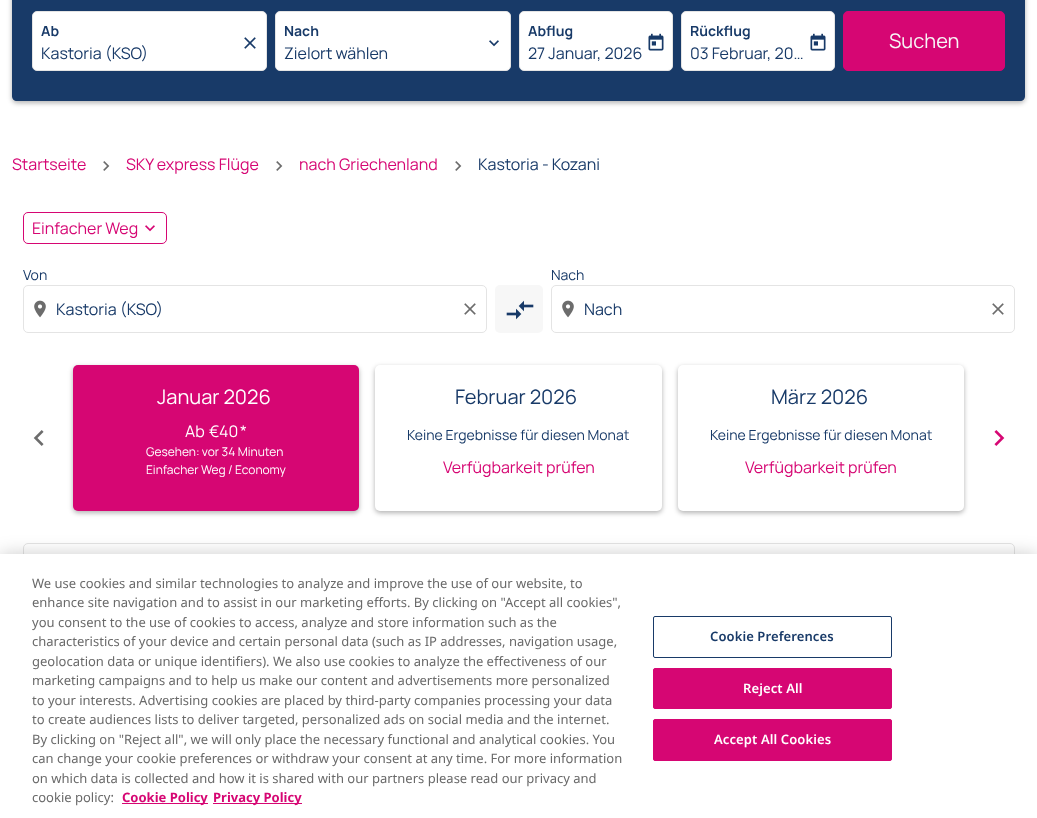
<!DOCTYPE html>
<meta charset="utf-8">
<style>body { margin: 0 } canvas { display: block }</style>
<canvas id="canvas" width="1037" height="818"></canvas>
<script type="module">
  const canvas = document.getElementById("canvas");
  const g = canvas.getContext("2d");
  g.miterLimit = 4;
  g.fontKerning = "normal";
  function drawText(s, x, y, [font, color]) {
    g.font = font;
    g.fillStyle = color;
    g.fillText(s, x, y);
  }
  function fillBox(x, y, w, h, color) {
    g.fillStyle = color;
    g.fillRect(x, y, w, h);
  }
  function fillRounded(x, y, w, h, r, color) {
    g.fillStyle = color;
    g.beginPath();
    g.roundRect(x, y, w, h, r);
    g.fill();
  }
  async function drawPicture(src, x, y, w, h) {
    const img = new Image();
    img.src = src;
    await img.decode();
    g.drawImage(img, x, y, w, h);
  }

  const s1 = ["bold 14px Manrope", "#183A68"];
  const s2 = ["16px Manrope", "#183A68"];
  const s3 = ["20px Manrope", "#F7F7F7"];
  const s4 = ["16px Manrope", "#D60673"];
  const s5 = ["14px Manrope", "#183A68"];
  const s6 = ["20px Manrope", "#FFFFFF"];
  const s7 = ["16px Manrope", "#FFFFFF"];
  const s8 = ["12px Manrope", "#FFFFFF"];
  const s9 = ["20px Manrope", "#183A68"];
  const s10 = ["13px Noto Sans", "#696969"];
  const s11 = ["bold 13px Noto Sans", "#D60673"];
  const s12 = ["600 13px Noto Sans", "#183A68"];
  const s13 = ["600 13px Noto Sans", "#FFFFFF"];

  fillBox(0, 0, 1037, 818, "#FFFFFF");
  g.fillStyle = "rgba(0, 0, 0, 0.3)";
  g.filter = "blur(2.5px)";
  g.beginPath();
  g.roundRect(12, -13, 1013, 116, 5);
  g.fill();
  g.filter = "none";
  g.fillStyle = "#183A68";
  g.beginPath();
  g.moveTo(12, -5);
  g.lineTo(1025, -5);
  g.lineTo(1025, 96);
  g.bezierCurveTo(1025, 99, 1023, 101, 1020, 101);
  g.lineTo(17, 101);
  g.bezierCurveTo(14, 101, 12, 99, 12, 96);
  g.closePath();
  g.fill();
  g.fillStyle = "#FFFFFF";
  g.beginPath();
  g.roundRect(32.5, 11.5, 234, 59, 4.5);
  g.fill();
  g.strokeStyle = "#E4E4E4";
  g.stroke();
  drawText("Ab", 41, 36, s1);
  drawText("Kastoria (KSO)", 41, 59, s2);
  await drawPicture("pic1.png", 244, 37, 12, 12);
  g.fillStyle = "#FFFFFF";
  g.beginPath();
  g.roundRect(275.5, 11.5, 235, 59, 4.5);
  g.fill();
  g.stroke();
  drawText("Nach", 284, 36, s1);
  drawText("Zielort wählen", 284, 59, s2);
  await drawPicture("pic2.png", 489, 40, 10, 7);
  g.fillStyle = "#FFFFFF";
  g.beginPath();
  g.roundRect(519.5, 11.5, 153, 59, 4.5);
  g.fill();
  g.stroke();
  drawText("Abflug", 528, 36, s1);
  drawText("27 Januar, 2026", 528, 59, s2);
  await drawPicture("pic3.png", 648, 33, 16, 18);
  g.fillStyle = "#FFFFFF";
  g.beginPath();
  g.roundRect(681.5, 11.5, 153, 59, 4.5);
  g.fill();
  g.stroke();
  drawText("Rückflug", 690, 36, s1);
  drawText("03 Februar, 20…", 690, 59, s2);
  await drawPicture("pic3.png", 810, 33, 16, 18);
  g.fillStyle = "#D60673";
  g.beginPath();
  g.roundRect(843.5, 11.5, 161, 59, 4.5);
  g.fill();
  g.strokeStyle = "#D60673";
  g.stroke();
  drawText("Suchen", 889, 48, s3);
  drawText("Startseite", 12, 170, s4);
  await drawPicture("pic4.png", 103, 161, 7, 10);
  drawText("SKY express Flüge", 126, 170, s4);
  await drawPicture("pic4.png", 276, 161, 7, 10);
  drawText("nach Griechenland", 299, 170, s4);
  await drawPicture("pic4.png", 455, 161, 7, 10);
  drawText("Kastoria - Kozani", 478, 170, s2);
  g.beginPath();
  g.roundRect(23.5, 212.5, 143, 31, 4.5);
  g.stroke();
  drawText("Einfacher Weg", 32, 234, s4);
  await drawPicture("pic5.png", 145, 225, 10, 7);
  drawText("Von", 23, 280, s5);
  g.beginPath();
  g.roundRect(23.5, 285.5, 463, 47, 4.5);
  g.strokeStyle = "#E4E4E4";
  g.stroke();
  await drawPicture("pic6.png", 34, 300, 12, 18);
  drawText("Kastoria (KSO)", 56, 315, s2);
  await drawPicture("pic7.png", 464, 303, 12, 12);
  fillRounded(495, 285, 48, 48, 5, "#F7F7F7");
  await drawPicture("pic8.png", 506, 300, 28, 20);
  drawText("Nach", 551, 280, s5);
  g.beginPath();
  g.roundRect(551.5, 285.5, 463, 47, 4.5);
  g.stroke();
  await drawPicture("pic6.png", 562, 300, 12, 18);
  drawText("Nach", 584, 315, s2);
  await drawPicture("pic7.png", 992, 303, 12, 12);
  await drawPicture("pic9.png", 33, 430, 11, 16);
  g.fillStyle = "rgba(0, 0, 0, 0.3)";
  g.filter = "blur(2.5px)";
  g.beginPath();
  g.roundRect(73, 367, 286, 146, 5);
  g.fill();
  g.filter = "none";
  fillRounded(73, 365, 286, 146, 5, "#D60673");
  drawText("Januar 2026", 157, 404, s6);
  drawText("Ab", 185, 437, s7);
  drawText("€40", 209, 437, s7);
  drawText("*", 240, 437, s7);
  drawText("Gesehen: vor 34 Minuten", 146, 456, s8);
  drawText("Einfacher Weg", 146, 474, s8);
  drawText("/", 228, 474, s8);
  drawText("Economy", 235, 474, s8);
  g.fillStyle = "rgba(0, 0, 0, 0.3)";
  g.filter = "blur(2.5px)";
  g.beginPath();
  g.roundRect(375, 367, 287, 146, 5);
  g.fill();
  g.filter = "none";
  fillRounded(375, 365, 287, 146, 5, "#FFFFFF");
  drawText("Februar 2026", 455, 404, s9);
  drawText("Keine Ergebnisse für diesen Monat", 407, 440, s5);
  drawText("Verfügbarkeit prüfen", 443, 473, s4);
  g.fillStyle = "rgba(0, 0, 0, 0.3)";
  g.filter = "blur(2.5px)";
  g.beginPath();
  g.roundRect(678, 367, 286, 146, 5);
  g.fill();
  g.filter = "none";
  fillRounded(678, 365, 286, 146, 5, "#FFFFFF");
  drawText("März 2026", 771, 404, s9);
  drawText("Keine Ergebnisse für diesen Monat", 710, 440, s5);
  drawText("Verfügbarkeit prüfen", 745, 473, s4);
  await drawPicture("pic10.png", 994, 430, 11, 16);
  g.beginPath();
  g.roundRect(23.5, 543.5, 991, 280, 4.5);
  g.stroke();
  g.fillStyle = "rgba(0, 0, 0, 0.2)";
  g.filter = "blur(9px)";
  g.beginPath();
  g.rect(0, 554, 1037, 264);
  g.fill();
  g.filter = "none";
  fillBox(0, 554, 1037, 264, "#FFFFFF");
  drawText("We use cookies and similar technologies to analyze and improve the use of our website, to", 32, 588, s10);
  drawText("enhance site navigation and to assist in our marketing efforts. By clicking on \"Accept all cookies\",", 32, 607, s10);
  drawText("you consent to the use of cookies to access, analyze and store information such as the", 32, 627, s10);
  drawText("characteristics of your device and certain personal data (such as IP addresses, navigation usage,", 32, 646, s10);
  drawText("geolocation data or unique identifiers). We also use cookies to analyze the effectiveness of our", 32, 666, s10);
  drawText("marketing campaigns and to help us make our content and advertisements more personalized", 32, 685, s10);
  drawText("to your interests. Advertising cookies are placed by third-party companies processing your data", 32, 705, s10);
  drawText("to create audiences lists to deliver targeted, personalized ads on social media and the internet.", 32, 724, s10);
  drawText("By clicking on \"Reject all\", we will only place the necessary functional and analytical cookies. You", 32, 744, s10);
  drawText("can change your cookie preferences or withdraw your consent at any time. For more information", 32, 763, s10);
  drawText("on which data is collected and how it is shared with our partners please read our privacy and", 32, 783, s10);
  drawText("cookie policy:", 32, 802, s10);
  fillBox(122, 803, 86, 1, "#D60673");
  drawText("Cookie Policy", 122, 802, s11);
  fillBox(213, 803, 89, 1, "#D60673");
  drawText("Privacy Policy", 213, 802, s11);
  g.beginPath();
  g.roundRect(653.5, 616.5, 238, 41, 1.5);
  g.strokeStyle = "#183A68";
  g.stroke();
  g.letterSpacing = "0.1px";
  drawText("Cookie Preferences", 710, 641, s12);
  g.fillStyle = "#D60673";
  g.beginPath();
  g.roundRect(653.5, 668.5, 238, 40, 1.5);
  g.fill();
  g.strokeStyle = "#D60673";
  g.stroke();
  drawText("Reject All", 743, 693, s13);
  g.fillStyle = "#D60673";
  g.beginPath();
  g.roundRect(653.5, 719.5, 238, 41, 1.5);
  g.fill();
  g.stroke();
  drawText("Accept All Cookies", 714, 744, s13);
</script>
